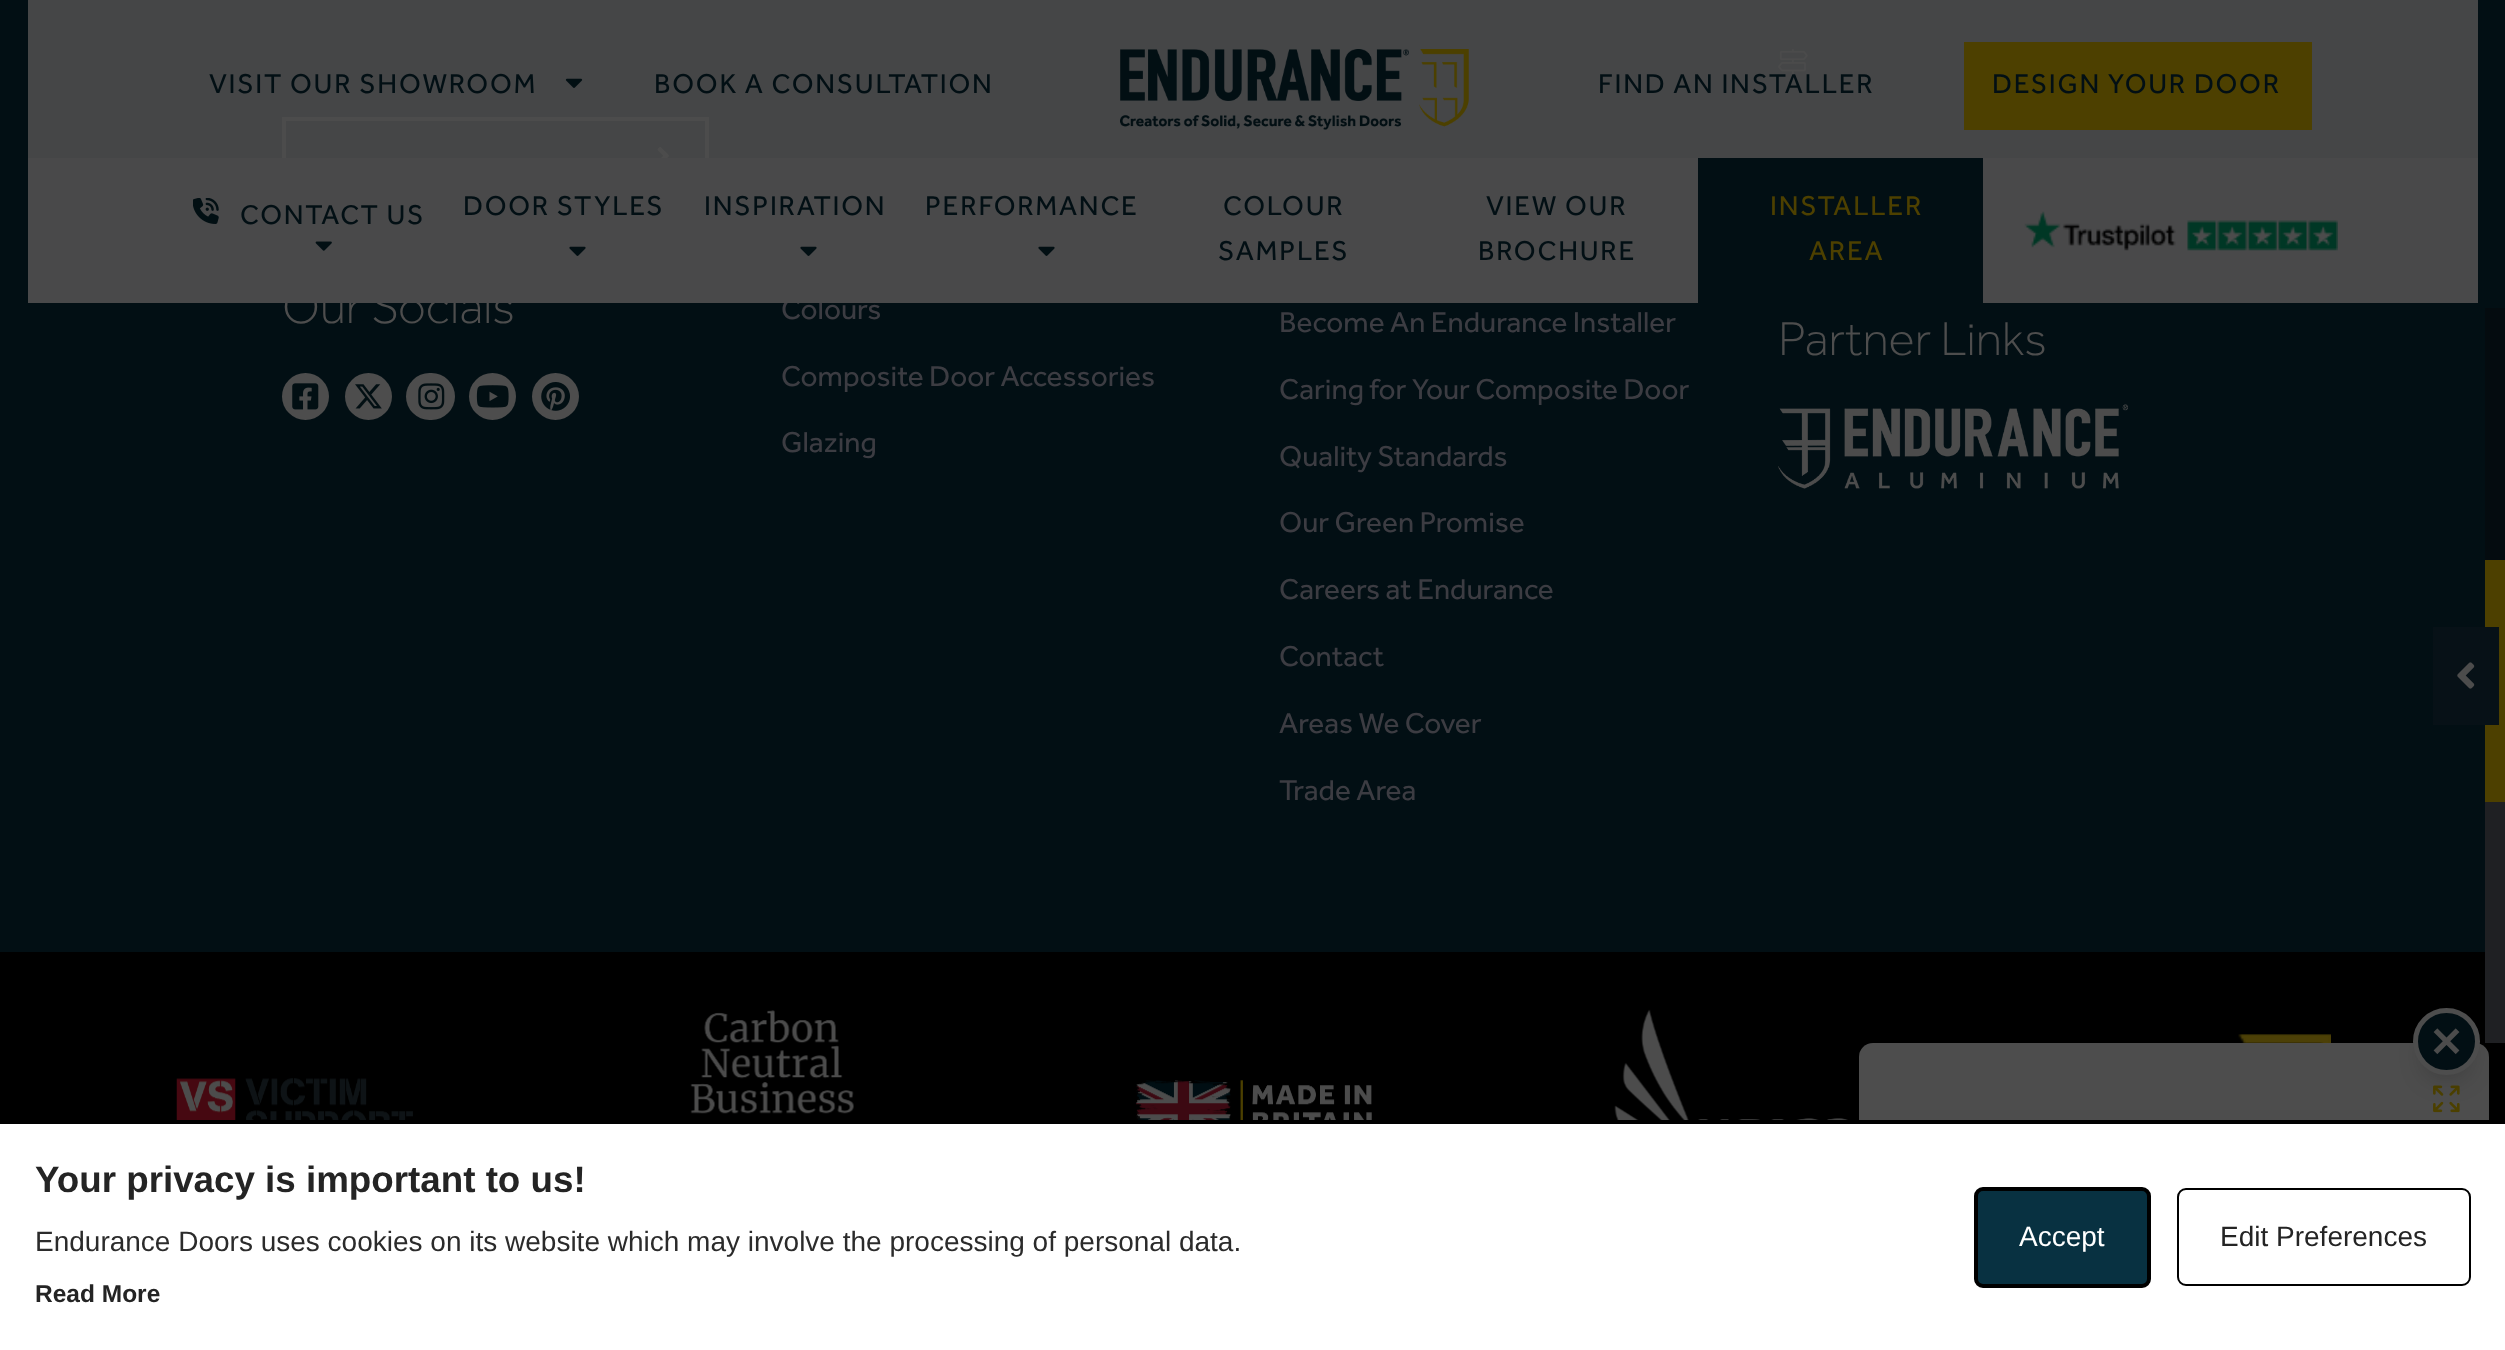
<!DOCTYPE html>
<meta charset="utf-8">
<style>body { margin: 0 } canvas { display: block }</style>
<canvas id="canvas" width="2505" height="1350"></canvas>
<script type="module">
  const canvas = document.getElementById("canvas");
  const g = canvas.getContext("2d");
  g.miterLimit = 4;
  g.fontKerning = "normal";
  function drawText(s, x, y, [font, color]) {
    g.font = font;
    g.fillStyle = color;
    g.fillText(s, x, y);
  }
  function fillBox(x, y, w, h, color) {
    g.fillStyle = color;
    g.fillRect(x, y, w, h);
  }
  function fillRounded(x, y, w, h, r, color) {
    g.fillStyle = color;
    g.beginPath();
    g.roundRect(x, y, w, h, r);
    g.fill();
  }
  async function drawPicture(src, x, y, w, h) {
    const img = new Image();
    img.src = src;
    await img.decode();
    g.drawImage(img, x, y, w, h);
  }

  const s1 = ["28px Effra", "#020F14"];
  const s2 = ["300 49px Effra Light", "#4D4D4D"];
  const s3 = ["29.75px Effra", "#3C3C42"];
  const s4 = ["28px Effra", "#4D4000"];
  const s5 = ["bold 36.75px Liberation Sans", "#242424"];
  const s6 = ["28px Liberation Sans", "#2B2B2B"];
  const s7 = ["bold 24.5px Liberation Sans", "#242424"];
  const s8 = ["28px Liberation Sans", "#FFFFFF"];
  const s9 = ["28px Liberation Sans", "#242424"];

  fillBox(0, 0, 2505, 1350, "#020F14");
  g.strokeStyle = "#4D4D4D";
  g.lineWidth = 4;
  g.strokeRect(284, 119, 423, 80);
  await drawPicture("pic7.png", 657, 147, 12, 11);
  await drawPicture("pic13.png", 1778, 49, 30, 30);
  fillBox(28, 0, 2450, 158, "rgba(77, 77, 77, 0.9)");
  g.letterSpacing = "1.75px";
  drawText("VISIT OUR SHOWROOM", 209, 93, s1);
  await drawPicture("pic1.png", 565, 78, 18, 10);
  drawText("BOOK A CONSULTATION", 654, 93, s1);
  await drawPicture("pic2.png", 1120, 49, 349, 81);
  drawText("FIND AN INSTALLER", 1598, 93, s1);
  fillBox(1964, 42, 348, 88, "#4D4000");
  drawText("DESIGN YOUR DOOR", 1992, 93, s1);
  g.letterSpacing = "0px";
  drawText("Our Socials", 282, 323, s2);
  drawText("Colours", 781, 319, s3);
  fillBox(28, 158, 2450, 145, "#49494A");
  await drawPicture("pic3.png", 193, 198, 26, 26);
  g.letterSpacing = "1.75px";
  drawText("CONTACT US", 240, 224, s1);
  await drawPicture("pic4.png", 315, 241, 17, 10);
  drawText("DOOR STYLES", 463, 215, s1);
  await drawPicture("pic5.png", 569, 246, 17, 10);
  drawText("INSPIRATION", 704, 215, s1);
  await drawPicture("pic5.png", 800, 246, 17, 10);
  drawText("PERFORMANCE", 925, 215, s1);
  await drawPicture("pic5.png", 1038, 246, 17, 10);
  drawText("COLOUR", 1223, 215, s1);
  drawText("SAMPLES", 1218, 260, s1);
  drawText("VIEW OUR", 1486, 215, s1);
  drawText("BROCHURE", 1478, 260, s1);
  fillBox(1698, 158, 285, 145, "#020F14");
  drawText("INSTALLER", 1770, 215, s4);
  drawText("AREA", 1809, 260, s4);
  await drawPicture("pic6.png", 2024, 211, 314, 40);
  g.fillStyle = "#4D4D4D";
  g.beginPath();
  g.arc(305.5, 396.5, 23.5, 0, Math.PI * 2);
  g.fill();
  await drawPicture("pic8.png", 292, 383, 27, 27);
  g.beginPath();
  g.arc(368.5, 396.5, 23.5, 0, Math.PI * 2);
  g.fill();
  await drawPicture("pic9.png", 355, 384, 27, 25);
  fillRounded(406, 373, 49, 47, 23.5, "#4D4D4D");
  await drawPicture("pic10.png", 418, 383, 27, 27);
  g.beginPath();
  g.arc(492.5, 396.5, 23.5, 0, Math.PI * 2);
  g.fill();
  await drawPicture("pic11.png", 476, 385, 33, 23);
  g.beginPath();
  g.arc(555.5, 396.5, 23.5, 0, Math.PI * 2);
  g.fill();
  await drawPicture("pic12.png", 541, 382, 29, 29);
  g.letterSpacing = "0px";
  drawText("Composite Door Accessories", 781, 386, s3);
  drawText("Glazing", 781, 452, s3);
  drawText("Become An Endurance Installer", 1279, 332, s3);
  drawText("Caring for Your Composite Door", 1279, 399, s3);
  drawText("Quality Standards", 1279, 466, s3);
  drawText("Our Green Promise", 1279, 532, s3);
  drawText("Careers at Endurance", 1279, 599, s3);
  drawText("Contact", 1279, 666, s3);
  drawText("Areas We Cover", 1279, 733, s3);
  drawText("Trade Area", 1279, 800, s3);
  drawText("Partner Links", 1778, 355, s2);
  await drawPicture("pic14.png", 1778, 404, 350, 85);
  fillBox(2485, 308, 20, 252, "#040B0F");
  fillBox(2485, 560, 20, 242, "#4D4000");
  fillBox(2433, 627, 66, 98, "#071117");
  await drawPicture("pic15.png", 2457, 662, 18, 27);
  fillBox(0, 952, 2505, 168, "#000000");
  fillRounded(1859, 1043, 630, 291, 14, "#4D4D4D");
  await drawPicture("pic22.png", 2433, 1085, 27, 28);
  g.fillStyle = "rgba(0, 0, 0, 0.3)";
  g.filter = "blur(14px)";
  g.beginPath();
  g.roundRect(2427, 1036, 39, 39, 19.5);
  g.fill();
  g.filter = "none";
  fillBox(2485, 802, 20, 241, "#1F2023");
  await drawPicture("pic16.png", 690, 1010, 164, 104);
  await drawPicture("pic17.png", 1614, 1009, 234, 111);
  await drawPicture("pic18.png", 2238, 1034, 93, 9);
  await drawPicture("pic19.png", 176, 1078, 237, 42);
  await drawPicture("pic20.png", 1135, 1080, 237, 40);
  g.fillStyle = "#020F14";
  g.beginPath();
  g.arc(2446.5, 1041.5, 31, 0, Math.PI * 2);
  g.fill();
  g.lineWidth = 5;
  g.stroke();
  await drawPicture("pic21.png", 2433, 1028, 27, 27);
  fillBox(0, 1124, 2505, 226, "#FFFFFF");
  fillBox(0, 1120, 2505, 4, "#000000");
  drawText("Your privacy is important to us!", 35, 1192, s5);
  drawText("Endurance Doors uses cookies on its website which may involve the processing of personal data.", 35, 1251, s6);
  drawText("Read More", 35, 1302, s7);
  g.fillStyle = "#083141";
  g.beginPath();
  g.roundRect(1976, 1189, 173, 97, 7);
  g.fill();
  g.strokeStyle = "#000000";
  g.lineWidth = 4;
  g.stroke();
  drawText("Accept", 2019, 1246, s8);
  g.beginPath();
  g.roundRect(2178, 1189, 292, 96, 8);
  g.lineWidth = 2;
  g.stroke();
  drawText("Edit Preferences", 2220, 1246, s9);
</script>
